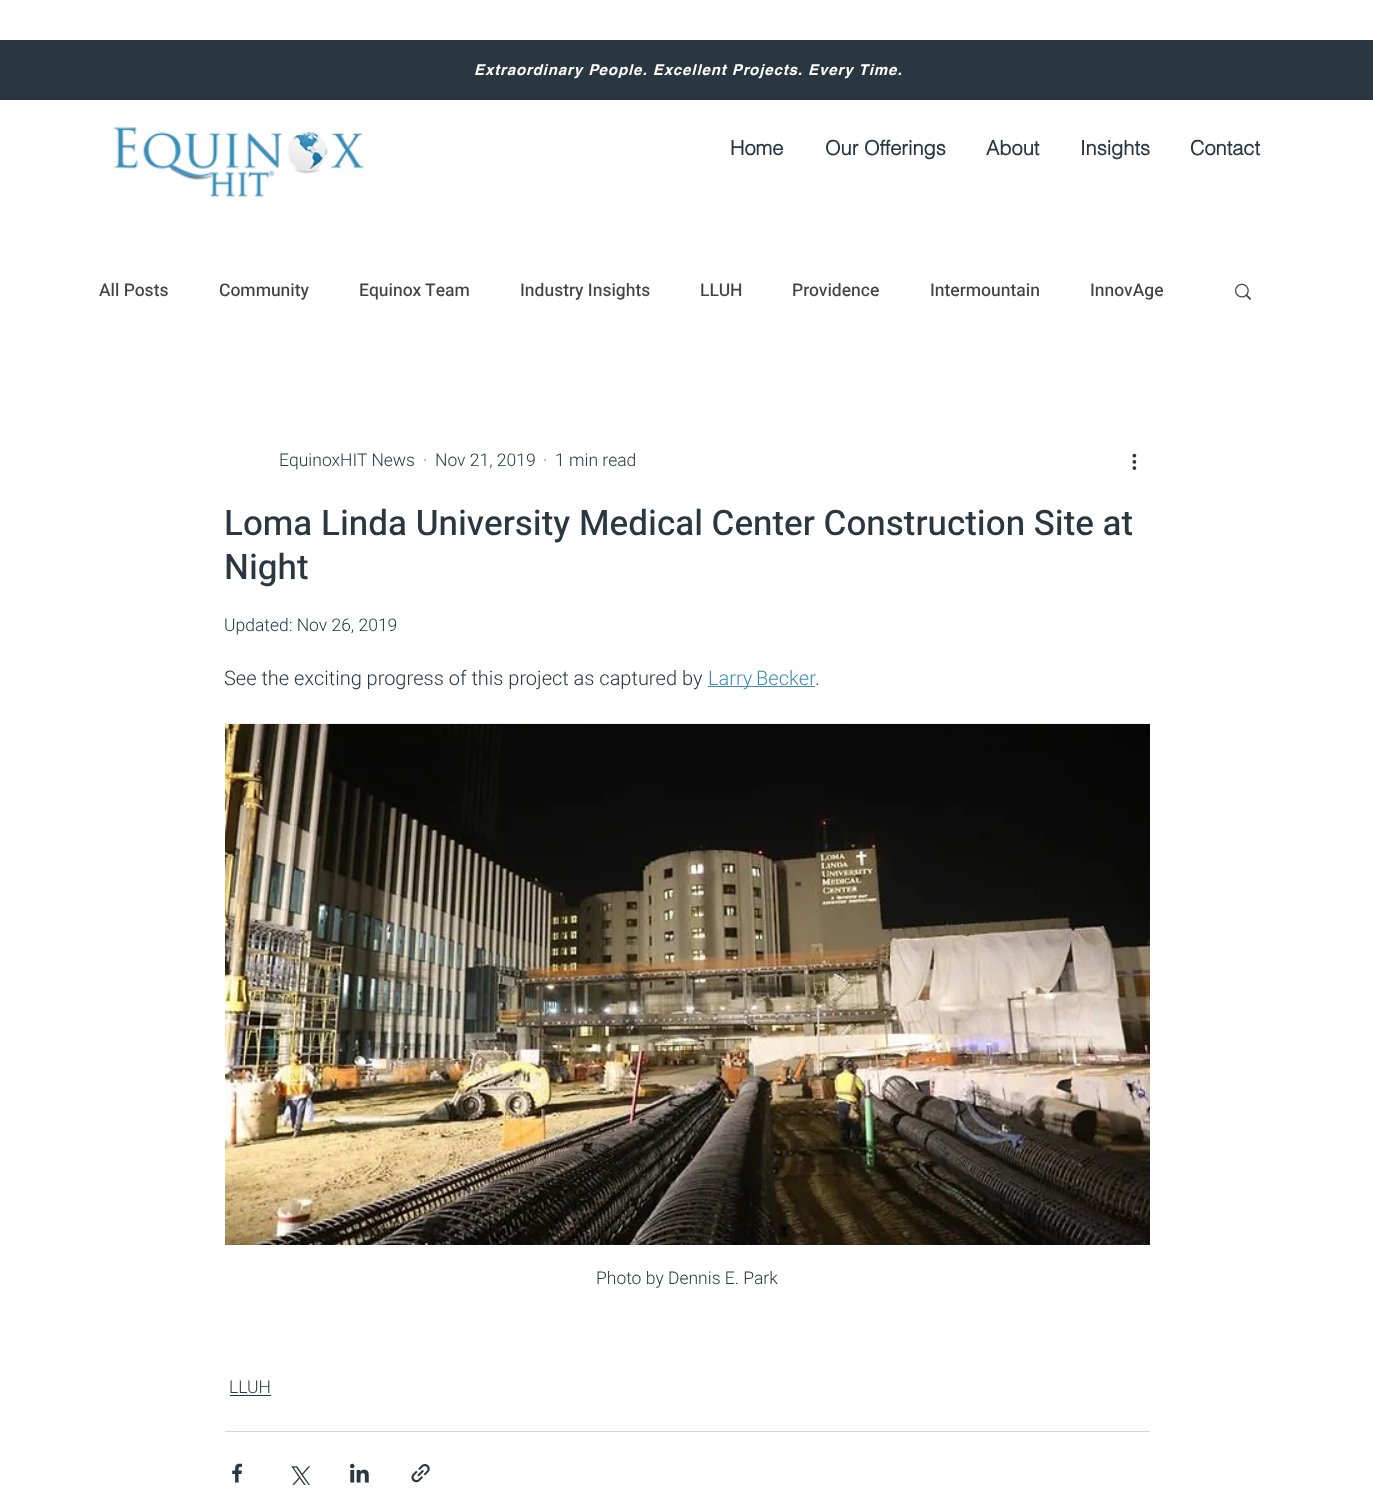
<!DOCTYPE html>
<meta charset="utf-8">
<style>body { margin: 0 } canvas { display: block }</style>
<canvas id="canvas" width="1373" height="1493"></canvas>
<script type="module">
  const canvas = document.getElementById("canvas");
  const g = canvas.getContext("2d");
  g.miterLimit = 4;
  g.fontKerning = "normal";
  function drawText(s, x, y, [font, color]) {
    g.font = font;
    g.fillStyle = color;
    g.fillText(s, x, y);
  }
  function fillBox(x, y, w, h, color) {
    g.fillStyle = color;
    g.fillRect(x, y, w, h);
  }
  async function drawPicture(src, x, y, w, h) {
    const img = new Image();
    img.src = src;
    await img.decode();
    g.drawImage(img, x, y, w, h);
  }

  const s1 = ["italic bold 15px helvetica", "#FFFFFF"];
  const s2 = ["bold 20px helvetica", "#2A3740"];
  const s3 = ["500 17.5px Heebo", "#424242"];
  const s4 = ["300 17.5px Heebo", "#2A3740"];
  const s5 = ["500 35px Heebo", "#2A3740"];
  const s6 = ["300 20px Heebo", "#2A3740"];
  const s7 = ["300 20px Heebo", "#3D8DBC"];

  fillBox(0, 0, 1373, 1493, "#FFFFFF");
  fillBox(0, 40, 1373, 60, "#2A3740");
  g.letterSpacing = "0.9px";
  drawText("Extraordinary People. Excellent Projects. Every Time.", 474, 75, s1);
  await drawPicture("pic1.png", 113, 127, 251, 70);
  g.letterSpacing = "0px";
  drawText("Home", 730, 155, s2);
  drawText("Our Offerings", 825, 155, s2);
  drawText("About", 986, 155, s2);
  drawText("Insights", 1080, 155, s2);
  drawText("Contact", 1190, 155, s2);
  drawText("All Posts", 99, 296, s3);
  drawText("Community", 219, 296, s3);
  drawText("Equinox Team", 359, 296, s3);
  drawText("Industry Insights", 520, 296, s3);
  drawText("LLUH", 700, 296, s3);
  drawText("Providence", 792, 296, s3);
  drawText("Intermountain", 930, 296, s3);
  drawText("InnovAge", 1090, 296, s3);
  await drawPicture("pic2.png", 1235, 283, 17, 17);
  drawText("EquinoxHIT News", 279, 466, s4);
  drawText("·", 423, 466, s4);
  drawText("Nov 21, 2019", 435, 466, s4);
  drawText("·", 543, 466, s4);
  drawText("1 min read", 555, 466, s4);
  await drawPicture("pic3.png", 1132, 453, 5, 17);
  drawText("Loma Linda University Medical Center Construction Site at", 224, 535, s5);
  drawText("Night", 224, 579, s5);
  drawText("Updated: Nov 26, 2019", 224, 631, s4);
  drawText("See the exciting progress of this project as captured by", 224, 685, s6);
  fillBox(708, 686, 107, 1, "#3D8DBC");
  g.wordSpacing = "-1px";
  drawText("Larry Becker", 708, 685, s7);
  g.wordSpacing = "0px";
  drawText(".", 815, 685, s6);
  await drawPicture("pic4.png", 225, 723, 925, 522);
  drawText("Photo by Dennis E. Park", 596, 1284, s4);
  drawText("LLUH", 229, 1393, s4);
  fillBox(230, 1395, 41, 1, "#2A3740");
  fillBox(225, 1431, 925, 1, "#D4D7D9");
  await drawPicture("pic5.png", 232, 1463, 10, 20);
  await drawPicture("pic6.png", 291, 1466, 19, 19);
  await drawPicture("pic7.png", 350, 1463, 19, 20);
  await drawPicture("pic8.png", 411, 1464, 19, 19);
</script>
